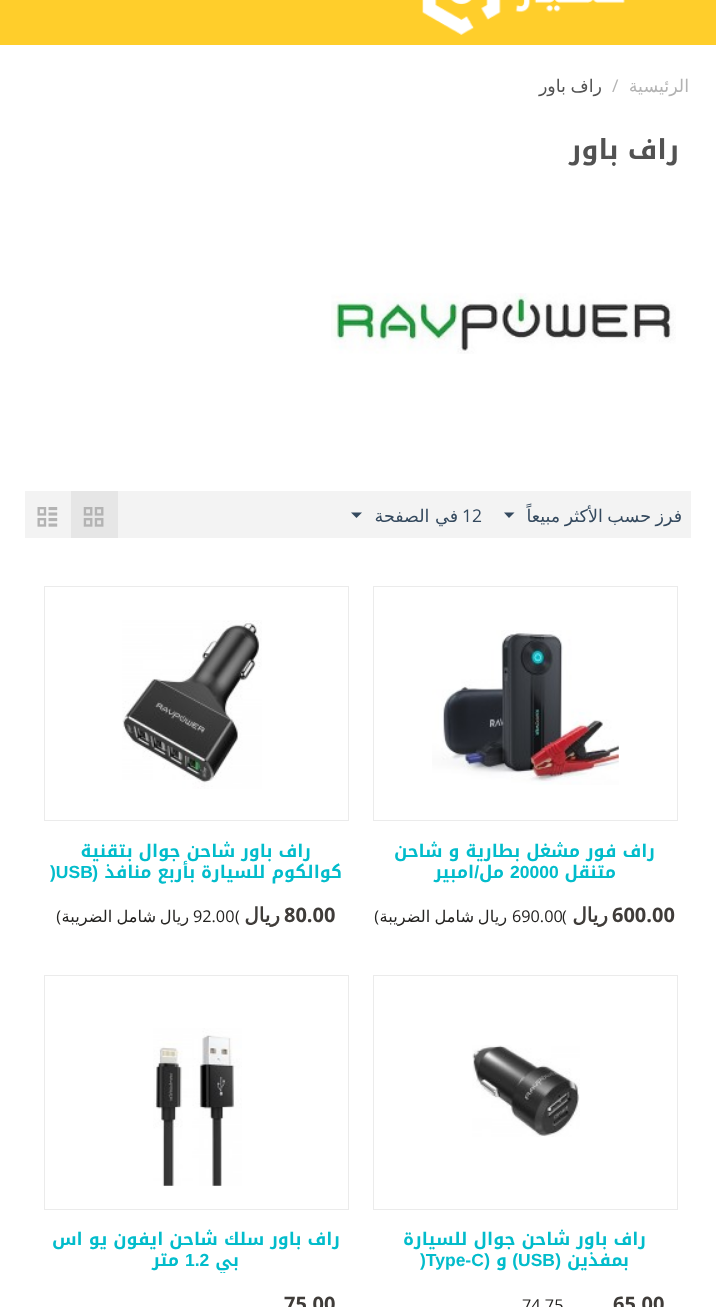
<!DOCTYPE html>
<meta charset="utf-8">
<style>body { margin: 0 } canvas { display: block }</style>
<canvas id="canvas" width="716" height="1307"></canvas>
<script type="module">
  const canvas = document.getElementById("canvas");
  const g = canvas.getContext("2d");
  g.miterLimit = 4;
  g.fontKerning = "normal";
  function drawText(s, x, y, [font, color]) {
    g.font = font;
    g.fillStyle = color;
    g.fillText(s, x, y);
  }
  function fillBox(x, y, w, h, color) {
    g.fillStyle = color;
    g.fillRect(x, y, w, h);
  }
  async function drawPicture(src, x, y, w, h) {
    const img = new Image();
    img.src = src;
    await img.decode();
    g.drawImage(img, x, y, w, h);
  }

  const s1 = ["17.5px DejaVu Sans", "#B3B3B3"];
  const s2 = ["17.5px Open Sans", "#B3B3B3"];
  const s3 = ["17.5px DejaVu Sans", "#525252"];
  const s4 = ["bold 27.5px Noto Kufi Arabic", "#525252"];
  const s5 = ["17.5px DejaVu Sans", "#34495E"];
  const s6 = ["17.5px Open Sans", "#34495E"];
  const s7 = ["bold 17.5px Noto Kufi Arabic", "#02BCCB"];
  const s8 = ["bold 17.5px Liberation Sans", "#02BCCB"];
  const s9 = ["bold 20px Open Sans", "#3F3C39"];
  const s10 = ["bold 20px DejaVu Sans", "#3F3C39"];
  const s11 = ["16.25px Open Sans", "#242321"];
  const s12 = ["16.25px DejaVu Sans", "#242321"];

  fillBox(0, 0, 716, 1307, "#FFFFFF");
  fillBox(0, 0, 716, 45, "#FFCE2B");
  await drawPicture("pic1.png", 422, 0, 203, 35);
  g.direction = "rtl";
  drawText("الرئيسية", 689, 92, s1);
  g.direction = "ltr";
  drawText("/", 612, 92, s2);
  g.wordSpacing = "-1px";
  g.direction = "rtl";
  drawText("راف باور", 602, 92, s3);
  g.wordSpacing = "0px";
  drawText("راف باور", 679, 159, s4);
  await drawPicture("pic2.png", 331, 293, 345, 61);
  fillBox(25, 491, 666, 47, "#F3F3F3");
  g.wordSpacing = "-1px";
  drawText("فرز حسب الأكثر مبيعاً", 682, 522, s5);
  g.beginPath();
  g.moveTo(509, 518);
  g.lineTo(504, 512.5);
  g.lineTo(514.5, 512.5);
  g.closePath();
  g.fill();
  g.wordSpacing = "0px";
  g.direction = "ltr";
  drawText("12", 462, 522, s6);
  g.direction = "rtl";
  drawText("في الصفحة", 458, 522, s5);
  g.beginPath();
  g.moveTo(356.5, 518);
  g.lineTo(351, 512.5);
  g.lineTo(362, 512.5);
  g.closePath();
  g.fill();
  fillBox(71, 491, 47, 47, "#E6E6E6");
  await drawPicture("pic3.png", 83, 507, 21, 20);
  await drawPicture("pic4.png", 37, 507, 21, 20);
  g.strokeStyle = "#EBEBEB";
  g.strokeRect(373.5, 586.5, 304, 234);
  await drawPicture("pic5.png", 432, 630, 187, 155);
  drawText("راف فور مشغل بطارية و شاحن", 655, 857, s7);
  drawText("متنقل", 616, 878, s7);
  g.direction = "ltr";
  drawText("20000", 510, 878, s8);
  g.direction = "rtl";
  drawText("مل", 504, 878, s7);
  drawText("/", 479, 878, s8);
  drawText("امبير", 474, 878, s7);
  g.direction = "ltr";
  drawText("600.00", 612, 922, s9);
  g.direction = "rtl";
  drawText("ريال", 608, 922, s10);
  g.direction = "ltr";
  drawText("(", 562, 922, s11);
  drawText("690.00", 512, 922, s11);
  g.direction = "rtl";
  drawText("ريال", 507, 922, s12);
  g.wordSpacing = "-1px";
  drawText("شامل الضريبة", 474, 922, s12);
  g.wordSpacing = "0px";
  drawText(")", 379, 922, s11);
  g.strokeRect(44.5, 586.5, 304, 234);
  await drawPicture("pic6.png", 122, 620, 140, 169);
  drawText("راف باور شاحن جوال بتقنية", 311, 857, s7);
  drawText("كوالكوم للسيارة بأربع منافذ", 342, 878, s7);
  drawText("(", 98, 878, s8);
  g.direction = "ltr";
  drawText(")USB", 50, 878, s8);
  drawText("80.00", 284, 922, s9);
  g.direction = "rtl";
  drawText("ريال", 280, 922, s10);
  g.direction = "ltr";
  drawText("(", 235, 922, s11);
  drawText("92.00", 193, 922, s11);
  g.direction = "rtl";
  drawText("ريال", 189, 922, s12);
  g.wordSpacing = "-1px";
  drawText("شامل الضريبة", 156, 922, s12);
  g.wordSpacing = "0px";
  drawText(")", 61, 922, s11);
  g.strokeRect(373.5, 975.5, 304, 234);
  await drawPicture("pic7.png", 472, 1045, 108, 92);
  drawText("راف باور شاحن جوال للسيارة", 646, 1245, s7);
  drawText("بمفذين", 629, 1266, s7);
  drawText("(", 561, 1266, s8);
  g.direction = "ltr";
  drawText("USB", 518, 1266, s8);
  g.direction = "rtl";
  drawText(")", 518, 1266, s8);
  drawText("و", 507, 1266, s7);
  drawText("(", 490, 1266, s8);
  g.direction = "ltr";
  drawText(")Type-C", 420, 1266, s8);
  drawText("65.00", 613, 1311, s9);
  drawText("74.75", 522, 1311, s11);
  g.strokeRect(44.5, 975.5, 304, 234);
  await drawPicture("pic8.png", 153, 1028, 89, 158);
  g.direction = "rtl";
  drawText("راف باور سلك شاحن ايفون يو اس", 340, 1245, s7);
  g.save();
  g.beginPath();
  g.rect(44, 1230, 305, 43);
  g.clip();
  drawText("بي", 239, 1266, s7);
  g.restore();
  g.direction = "ltr";
  drawText("1.2", 185, 1266, s8);
  g.direction = "rtl";
  drawText("متر", 179, 1266, s7);
  g.direction = "ltr";
  drawText("75.00", 284, 1311, s9);
</script>
